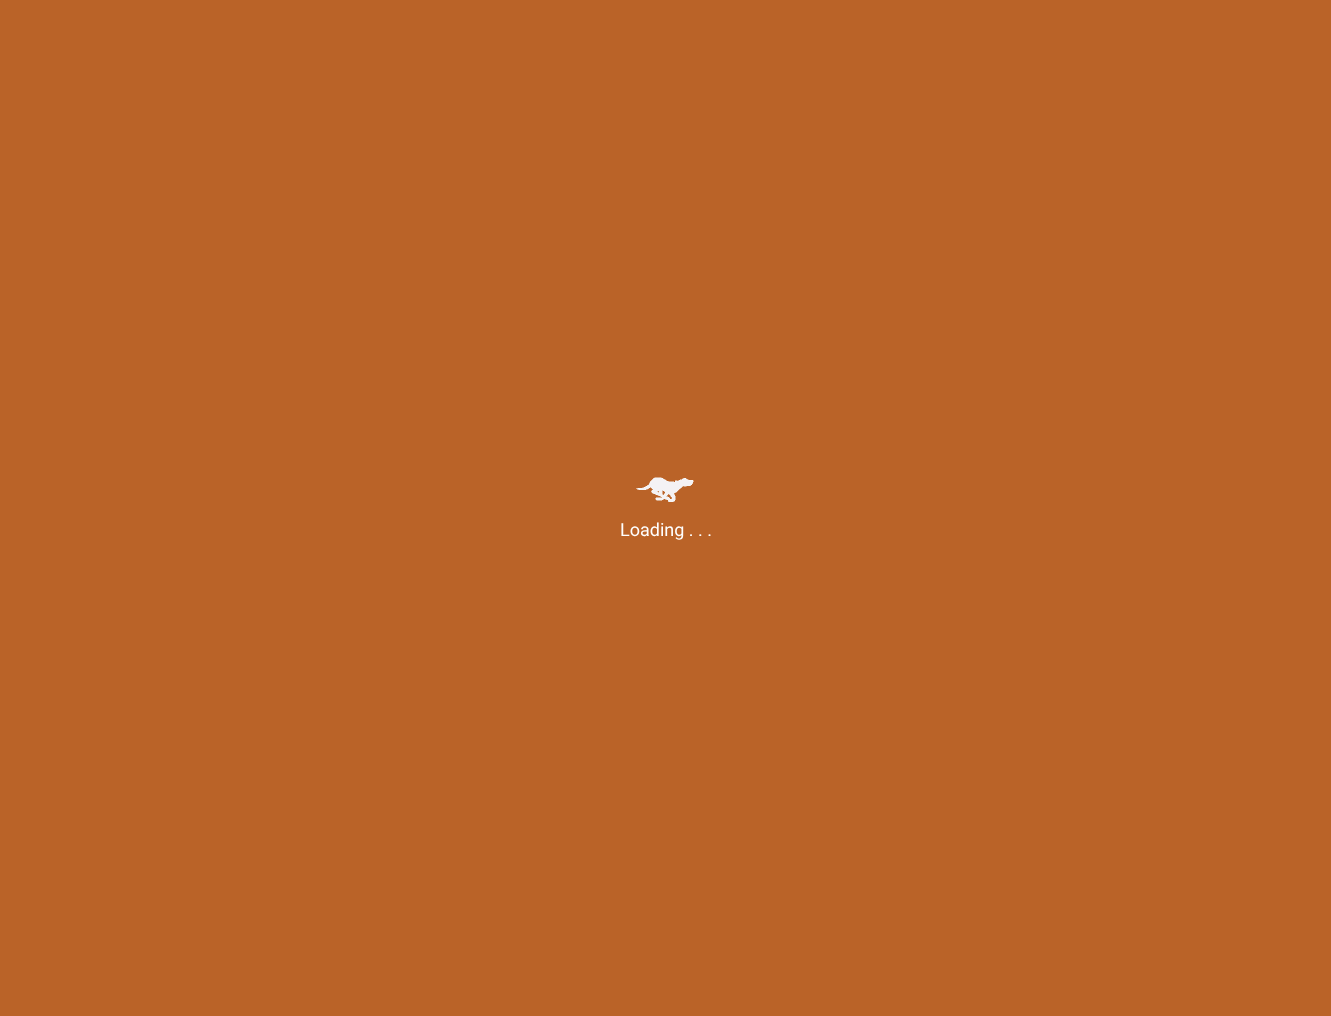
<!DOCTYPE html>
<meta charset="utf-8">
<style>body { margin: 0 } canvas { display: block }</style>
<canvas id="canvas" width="1331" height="1016"></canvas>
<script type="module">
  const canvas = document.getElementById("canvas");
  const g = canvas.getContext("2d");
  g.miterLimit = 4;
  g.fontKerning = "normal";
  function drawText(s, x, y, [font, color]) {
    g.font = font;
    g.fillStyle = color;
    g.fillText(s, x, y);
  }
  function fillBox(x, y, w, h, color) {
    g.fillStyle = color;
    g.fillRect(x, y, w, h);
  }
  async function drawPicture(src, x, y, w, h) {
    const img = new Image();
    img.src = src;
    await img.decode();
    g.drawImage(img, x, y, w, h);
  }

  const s1 = ["18px Roboto", "#FFFFFF"];

  fillBox(0, 0, 1331, 1016, "#BA6328");
  await drawPicture("pic1.png", 636, 477, 58, 25);
  drawText("Loading . . .", 620, 536, s1);
</script>
